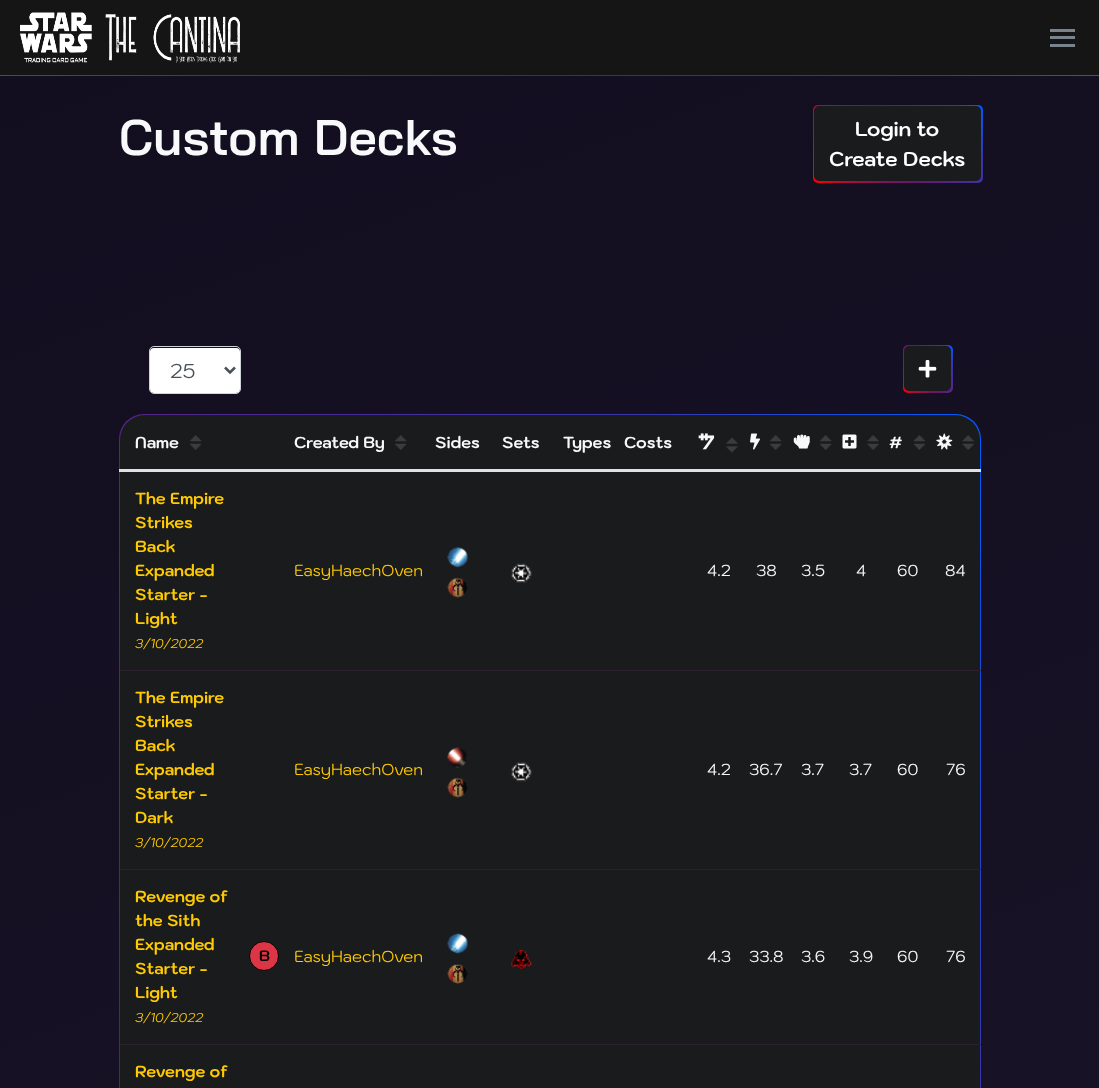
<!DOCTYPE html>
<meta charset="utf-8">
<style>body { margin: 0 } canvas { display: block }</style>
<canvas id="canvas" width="1099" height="1088"></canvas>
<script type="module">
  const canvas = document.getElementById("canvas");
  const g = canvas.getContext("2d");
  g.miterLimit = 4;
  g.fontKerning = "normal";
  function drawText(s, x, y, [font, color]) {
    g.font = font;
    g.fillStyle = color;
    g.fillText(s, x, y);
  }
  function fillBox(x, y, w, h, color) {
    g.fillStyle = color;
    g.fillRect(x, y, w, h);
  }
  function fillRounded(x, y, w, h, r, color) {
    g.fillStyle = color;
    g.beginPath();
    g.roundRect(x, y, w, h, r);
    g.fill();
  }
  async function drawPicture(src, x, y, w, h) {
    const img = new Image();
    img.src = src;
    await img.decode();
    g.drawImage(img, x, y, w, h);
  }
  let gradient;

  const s1 = ["600 50px Bai Jamjuree", "#F8F9FA"];
  const s2 = ["bold 20px Kodchasan", "#FFFFFF"];
  const s3 = ["20px Kodchasan", "#495057"];
  const s4 = ["bold 16px Kodchasan", "#F8F9FA"];
  const s5 = ["bold 30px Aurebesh", "#F8F9FA"];
  const s6 = ["bold 16px Kodchasan", "#FFCA00"];
  const s7 = ["italic 12.75px Kodchasan", "#FFCA00"];
  const s8 = ["16px Kodchasan", "#FFCA00"];
  const s9 = ["16px Kodchasan", "#F8F9FA"];
  const s10 = ["bold 15px Kodchasan", "#000000"];

  fillBox(0, 0, 1099, 1088, "#FFFFFF");
  gradient = g.createLinearGradient(-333, 121, 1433, 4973);
  gradient.addColorStop(0, "#120E20");
  gradient.addColorStop(1, "#241C31");
  g.fillStyle = gradient;
  g.fillRect(0, 76, 1099, 1012);
  fillBox(0, 0, 1099, 75, "#151515");
  await drawPicture("pic1.png", 20, 12, 220, 51);
  fillBox(1050, 44, 25, 3, "#78838E");
  fillBox(1050, 29, 25, 3, "#78838E");
  fillBox(1050, 36, 25, 3, "#78838E");
  gradient = g.createLinearGradient(0, 76, 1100, 76);
  gradient.addColorStop(0, "#FF0000");
  gradient.addColorStop(0.16, "#AE0D38");
  gradient.addColorStop(0.36, "#78155E");
  gradient.addColorStop(0.5, "#66186B");
  gradient.addColorStop(0.63, "#582180");
  gradient.addColorStop(0.87, "#3737AF");
  gradient.addColorStop(1, "#005BFF");
  g.fillStyle = gradient;
  g.fillRect(0, 75, 1099, 1);
  drawText("Custom Decks", 119, 155, s1);
  gradient = g.createLinearGradient(814, 186, 981, 101);
  gradient.addColorStop(0, "#FF0000");
  gradient.addColorStop(0.16, "#AE0D38");
  gradient.addColorStop(0.36, "#78155E");
  gradient.addColorStop(0.5, "#66186B");
  gradient.addColorStop(0.63, "#582180");
  gradient.addColorStop(0.87, "#3737AF");
  gradient.addColorStop(1, "#005BFF");
  g.fillStyle = gradient;
  g.beginPath();
  g.roundRect(813, 105, 170, 78, 5);
  g.fill();
  fillRounded(814, 106, 167, 75, 5, "#191B1D");
  drawText("Login to", 855, 136, s2);
  drawText("Create Decks", 829, 166, s2);
  fillRounded(150, 348, 90, 45, 4, "#FFFFFF");
  g.beginPath();
  g.roundRect(149.5, 346.5, 91, 47, 4.5);
  g.strokeStyle = "#CED4DA";
  g.stroke();
  g.beginPath();
  g.moveTo(225, 367.5);
  g.lineTo(230, 372.5);
  g.lineTo(235, 367.5);
  g.strokeStyle = "#495057";
  g.lineWidth = 2.5;
  g.stroke();
  drawText("25", 170, 378, s3);
  gradient = g.createLinearGradient(898, 384, 957, 354);
  gradient.addColorStop(0, "#FF0000");
  gradient.addColorStop(0.16, "#AE0D38");
  gradient.addColorStop(0.36, "#78155E");
  gradient.addColorStop(0.5, "#66186B");
  gradient.addColorStop(0.63, "#582180");
  gradient.addColorStop(0.87, "#3737AF");
  gradient.addColorStop(1, "#005BFF");
  g.fillStyle = gradient;
  g.beginPath();
  g.roundRect(903, 345, 50, 48, 5);
  g.fill();
  fillRounded(904, 346, 47, 45, 5, "#191B1D");
  await drawPicture("pic2.png", 918, 360, 19, 18);
  gradient = g.createLinearGradient(-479, 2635, 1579, 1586);
  gradient.addColorStop(0, "#FF0000");
  gradient.addColorStop(0.16, "#AE0D38");
  gradient.addColorStop(0.36, "#78155E");
  gradient.addColorStop(0.5, "#66186B");
  gradient.addColorStop(0.63, "#582180");
  gradient.addColorStop(0.87, "#3737AF");
  gradient.addColorStop(1, "#005BFF");
  g.fillStyle = gradient;
  g.beginPath();
  g.roundRect(119, 414, 862, 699, 25);
  g.fill();
  fillRounded(120, 415, 860, 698, 25, "#191B1D");
  fillBox(119, 469, 862, 3, "#DEE2E6");
  await drawPicture("pic3.png", 936, 433, 17, 17);
  await drawPicture("pic4.png", 962, 435, 12, 15);
  drawText("Name", 135, 448, s4);
  await drawPicture("pic5.png", 190, 435, 12, 15);
  drawText("Created By", 294, 448, s4);
  await drawPicture("pic6.png", 395, 435, 12, 15);
  drawText("Sides", 435, 448, s4);
  drawText("Sets", 502, 448, s4);
  drawText("Types", 563, 448, s4);
  drawText("Costs", 624, 448, s4);
  drawText("$", 699, 449, s5);
  await drawPicture("pic7.png", 726, 437, 12, 16);
  await drawPicture("pic8.png", 750, 433, 10, 17);
  await drawPicture("pic9.png", 770, 435, 12, 15);
  await drawPicture("pic10.png", 793, 434, 17, 15);
  await drawPicture("pic6.png", 820, 435, 12, 15);
  await drawPicture("pic11.png", 842, 434, 15, 15);
  await drawPicture("pic4.png", 867, 435, 12, 15);
  drawText("#", 889, 448, s4);
  await drawPicture("pic12.png", 913, 435, 12, 15);
  drawText("The Empire", 135, 504, s6);
  drawText("Strikes", 135, 528, s6);
  drawText("Back", 135, 552, s6);
  drawText("Expanded", 135, 576, s6);
  drawText("Starter -", 135, 600, s6);
  drawText("Light", 135, 624, s6);
  drawText("3/10/2022", 135, 648, s7);
  drawText("EasyHaechOven", 294, 576, s8);
  await drawPicture("pic13.png", 447, 547, 21, 21);
  await drawPicture("pic14.png", 447, 577, 21, 21);
  await drawPicture("pic15.png", 511, 563, 21, 20);
  drawText("4.2", 707, 576, s9);
  drawText("38", 756, 576, s9);
  drawText("3.5", 801, 576, s9);
  drawText("4", 856, 576, s9);
  drawText("60", 897, 576, s9);
  drawText("84", 945, 576, s9);
  drawText("The Empire", 135, 703, s6);
  drawText("Strikes", 135, 727, s6);
  drawText("Back", 135, 751, s6);
  drawText("Expanded", 135, 775, s6);
  drawText("Starter -", 135, 799, s6);
  drawText("Dark", 135, 823, s6);
  drawText("3/10/2022", 135, 847, s7);
  drawText("EasyHaechOven", 294, 775, s8);
  await drawPicture("pic16.png", 447, 747, 21, 21);
  await drawPicture("pic14.png", 447, 777, 21, 21);
  await drawPicture("pic17.png", 511, 762, 21, 20);
  drawText("4.2", 707, 775, s9);
  drawText("36.7", 749, 775, s9);
  drawText("3.7", 801, 775, s9);
  drawText("3.7", 849, 775, s9);
  drawText("60", 897, 775, s9);
  fillBox(120, 670, 861, 1, "#2D212F");
  drawText("76", 946, 775, s9);
  drawText("Revenge of", 135, 902, s6);
  drawText("the Sith", 135, 926, s6);
  drawText("Expanded", 135, 950, s6);
  drawText("Starter -", 135, 974, s6);
  drawText("Light", 135, 998, s6);
  drawText("3/10/2022", 135, 1022, s7);
  g.fillStyle = "#DC3545";
  g.beginPath();
  g.arc(264, 956, 14.5, 0, Math.PI * 2);
  g.fill();
  g.strokeStyle = "#000000";
  g.lineWidth = 1;
  g.stroke();
  drawText("B", 259, 961, s10);
  drawText("EasyHaechOven", 294, 962, s8);
  await drawPicture("pic18.png", 447, 933, 21, 21);
  await drawPicture("pic19.png", 447, 964, 21, 20);
  await drawPicture("pic20.png", 511, 950, 21, 19);
  drawText("4.3", 707, 962, s9);
  drawText("33.8", 749, 962, s9);
  drawText("3.6", 801, 962, s9);
  drawText("3.9", 849, 962, s9);
  drawText("60", 897, 962, s9);
  fillBox(120, 869, 861, 1, "#2D212F");
  drawText("76", 946, 962, s9);
  fillBox(120, 1044, 861, 1, "#2D212F");
  drawText("Revenge of", 135, 1077, s6);
</script>
